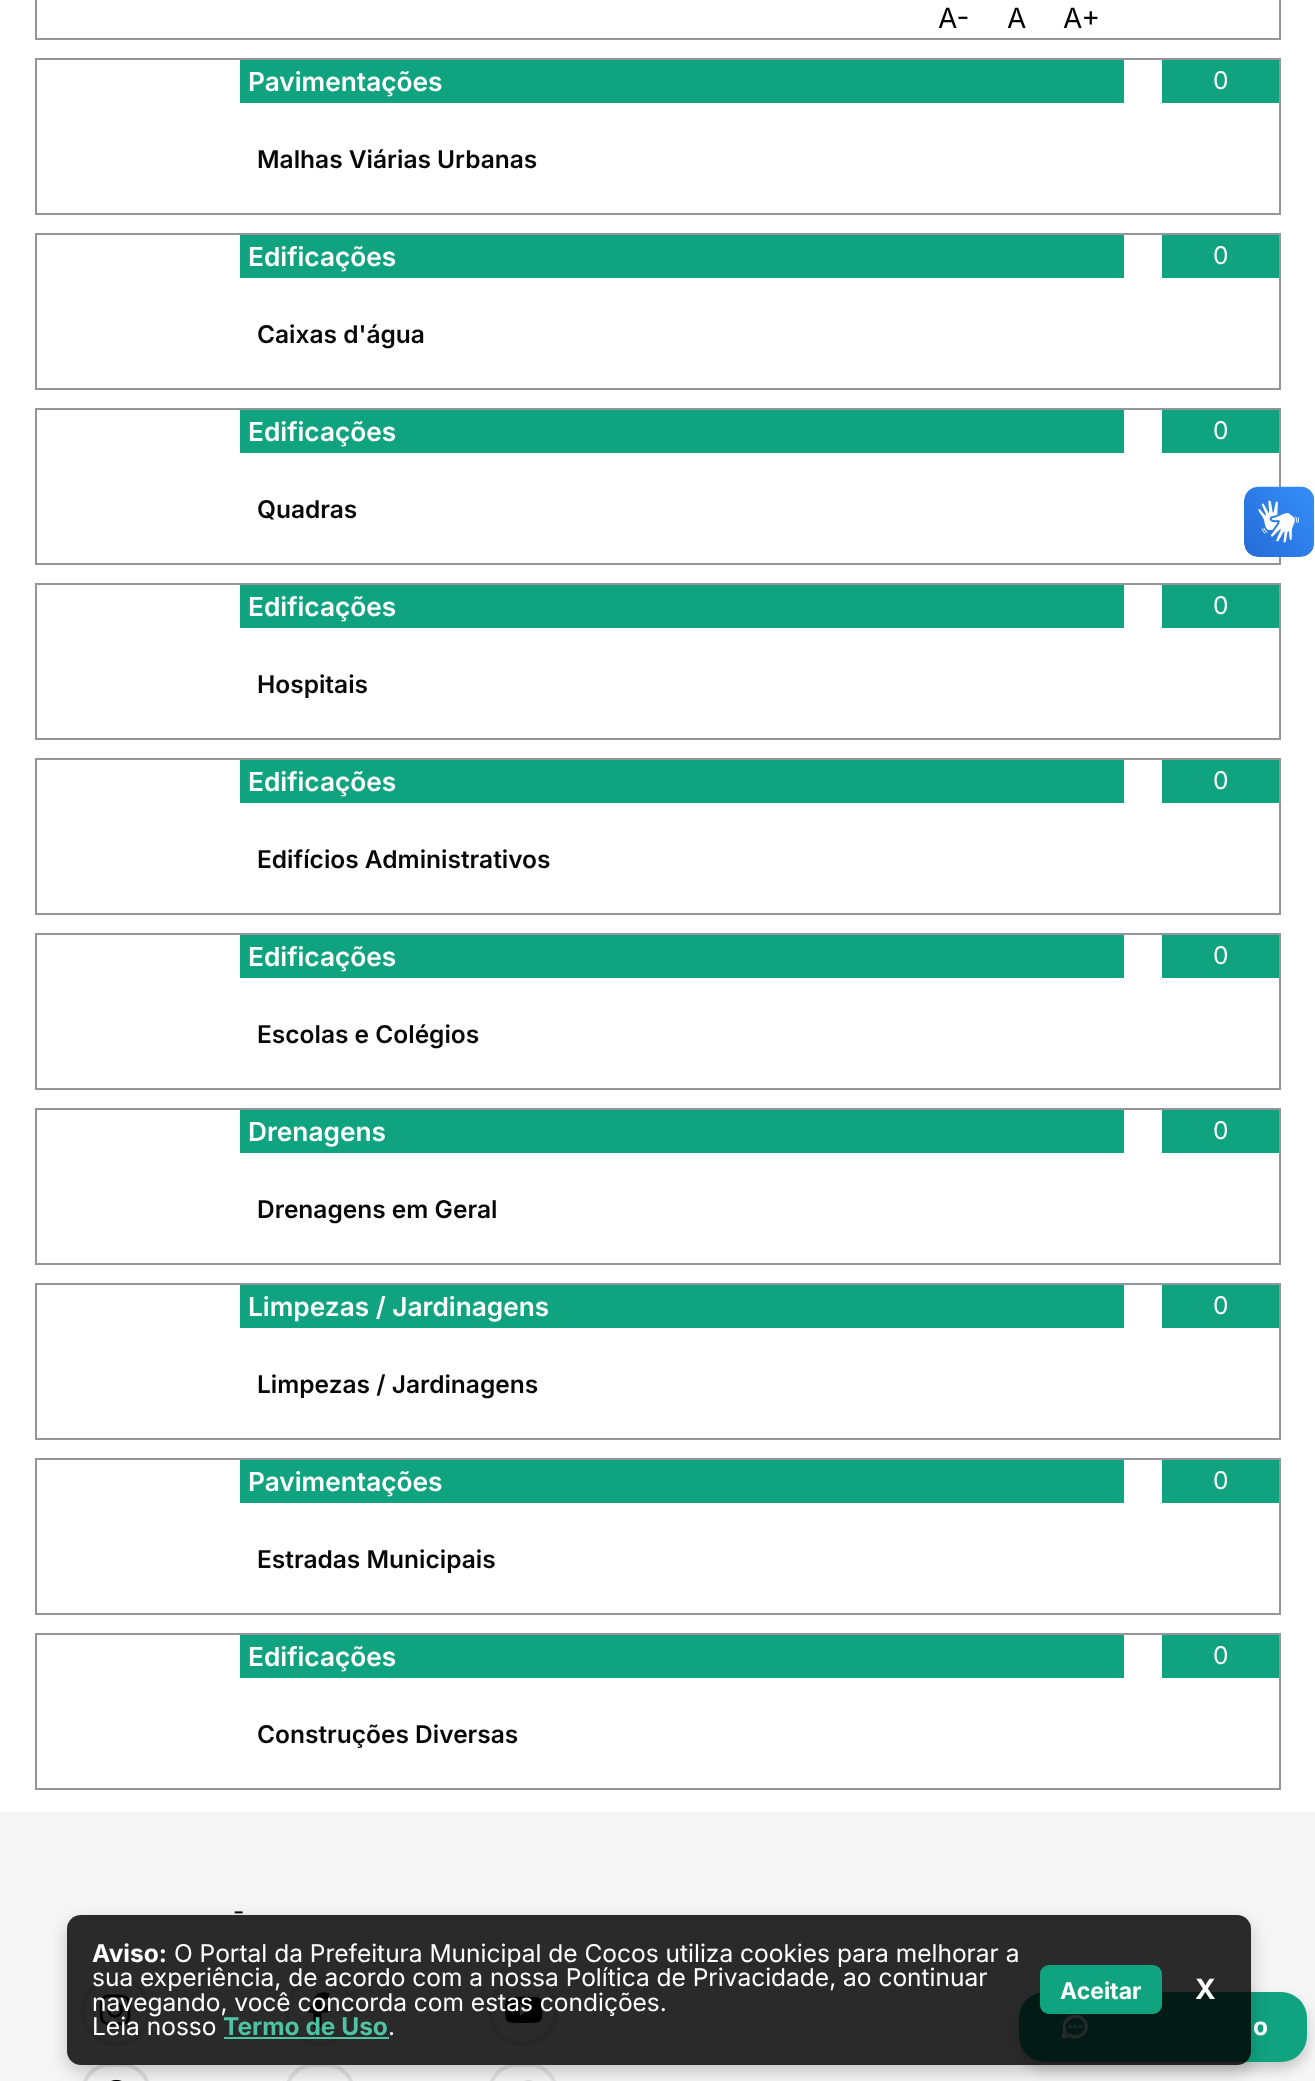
<!DOCTYPE html>
<meta charset="utf-8">
<style>body { margin: 0 } canvas { display: block }</style>
<canvas id="canvas" width="1315" height="2081"></canvas>
<script type="module">
  const canvas = document.getElementById("canvas");
  const g = canvas.getContext("2d");
  g.miterLimit = 4;
  g.fontKerning = "normal";
  function drawText(s, x, y, [font, color]) {
    g.font = font;
    g.fillStyle = color;
    g.fillText(s, x, y);
  }
  function fillBox(x, y, w, h, color) {
    g.fillStyle = color;
    g.fillRect(x, y, w, h);
  }
  function fillRounded(x, y, w, h, r, color) {
    g.fillStyle = color;
    g.beginPath();
    g.roundRect(x, y, w, h, r);
    g.fill();
  }
  async function drawPicture(src, x, y, w, h) {
    const img = new Image();
    img.src = src;
    await img.decode();
    g.drawImage(img, x, y, w, h);
  }

  const s1 = ["28px Inter", "#000000"];
  const s2 = ["bold 24.5px Inter", "#FFFFFF"];
  const s3 = ["600 26.25px Inter", "#FFFFFF"];
  const s4 = ["24.5px Inter", "#FFFFFF"];
  const s5 = ["600 24.5px Inter", "#080808"];
  const s6 = ["24.5px Inter", "#000000"];
  const s7 = ["bold 24.5px Inter", "#4DC3A4"];
  const s8 = ["bold 23px Inter", "#FFFFFF"];
  const s9 = ["bold 28px Inter", "#FFFFFF"];

  fillBox(0, 0, 1315, 2081, "#FFFFFF");
  g.strokeStyle = "#94959B";
  g.lineWidth = 2;
  g.strokeRect(36, -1, 1244, 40);
  drawText("A-", 938, 28, s1);
  drawText("A", 1007, 28, s1);
  drawText("A+", 1063, 28, s1);
  fillBox(0, 1812, 1315, 269, "#F6F6F6");
  g.fillStyle = "rgba(0, 0, 0, 0.2)";
  g.filter = "blur(7px)";
  g.beginPath();
  g.roundRect(1019, 1999, 288, 70, 26);
  g.fill();
  g.filter = "none";
  fillRounded(1019, 1992, 288, 70, 26, "#10A37F");
  await drawPicture("pic1.png", 1061, 2014, 27, 25);
  drawText("o", 1253, 2035, s2);
  g.strokeRect(36, 59, 1244, 155);
  fillBox(240, 60, 884, 43, "#10A37F");
  drawText("Pavimentações", 248, 91, s3);
  fillBox(1162, 60, 117, 43, "#10A37F");
  drawText("0", 1213, 89, s4);
  drawText("Malhas Viárias Urbanas", 257, 168, s5);
  g.strokeRect(36, 234, 1244, 155);
  fillBox(240, 235, 884, 43, "#10A37F");
  drawText("Edificações", 248, 266, s3);
  fillBox(1162, 235, 117, 43, "#10A37F");
  drawText("0", 1213, 264, s4);
  drawText("Caixas d'água", 257, 343, s5);
  g.strokeRect(36, 409, 1244, 155);
  fillBox(240, 410, 884, 43, "#10A37F");
  drawText("Edificações", 248, 441, s3);
  fillBox(1162, 410, 117, 43, "#10A37F");
  drawText("0", 1213, 439, s4);
  drawText("Quadras", 257, 518, s5);
  g.strokeRect(36, 584, 1244, 155);
  fillBox(240, 585, 884, 43, "#10A37F");
  drawText("Edificações", 248, 616, s3);
  fillBox(1162, 585, 117, 43, "#10A37F");
  drawText("0", 1213, 614, s4);
  drawText("Hospitais", 257, 693, s5);
  g.strokeRect(36, 759, 1244, 155);
  fillBox(240, 760, 884, 43, "#10A37F");
  drawText("Edificações", 248, 791, s3);
  fillBox(1162, 760, 117, 43, "#10A37F");
  drawText("0", 1213, 789, s4);
  drawText("Edifícios Administrativos", 257, 868, s5);
  g.strokeRect(36, 934, 1244, 155);
  fillBox(240, 935, 884, 43, "#10A37F");
  drawText("Edificações", 248, 966, s3);
  fillBox(1162, 935, 117, 43, "#10A37F");
  drawText("0", 1213, 964, s4);
  drawText("Escolas e Colégios", 257, 1043, s5);
  g.strokeRect(36, 1109, 1244, 155);
  fillBox(240, 1110, 884, 43, "#10A37F");
  drawText("Drenagens", 248, 1141, s3);
  fillBox(1162, 1110, 117, 43, "#10A37F");
  drawText("0", 1213, 1139, s4);
  drawText("Drenagens em Geral", 257, 1218, s5);
  g.strokeRect(36, 1284, 1244, 155);
  fillBox(240, 1285, 884, 43, "#10A37F");
  drawText("Limpezas / Jardinagens", 248, 1316, s3);
  fillBox(1162, 1285, 117, 43, "#10A37F");
  drawText("0", 1213, 1314, s4);
  drawText("Limpezas / Jardinagens", 257, 1393, s5);
  g.strokeRect(36, 1459, 1244, 155);
  fillBox(240, 1460, 884, 43, "#10A37F");
  drawText("Pavimentações", 248, 1491, s3);
  fillBox(1162, 1460, 117, 43, "#10A37F");
  drawText("0", 1213, 1489, s4);
  drawText("Estradas Municipais", 257, 1568, s5);
  g.strokeRect(36, 1634, 1244, 155);
  fillBox(240, 1635, 884, 43, "#10A37F");
  drawText("Edificações", 248, 1666, s3);
  fillBox(1162, 1635, 117, 43, "#10A37F");
  drawText("0", 1213, 1664, s4);
  drawText("Construções Diversas", 257, 1743, s5);
  await drawPicture("pic2.png", 1244, 486, 71, 71);
  await drawPicture("pic3.png", 1244, 487, 70, 70);
  drawText("-", 233, 1920, s6);
  g.beginPath();
  g.arc(116, 2011, 33, 0, Math.PI * 2);
  g.strokeStyle = "#DEDEDE";
  g.lineWidth = 4;
  g.stroke();
  await drawPicture("pic4.png", 99, 1994, 32, 32);
  g.beginPath();
  g.arc(320, 2011, 33, 0, Math.PI * 2);
  g.stroke();
  await drawPicture("pic5.png", 308, 1992, 21, 36);
  g.beginPath();
  g.arc(523, 2011, 33, 0, Math.PI * 2);
  g.stroke();
  await drawPicture("pic6.png", 505, 1996, 38, 27);
  g.beginPath();
  g.roundRect(83, 2065, 66, 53, 33);
  g.stroke();
  await drawPicture("pic7.png", 111, 2079, 11, 2);
  g.beginPath();
  g.roundRect(287, 2065, 66, 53, 33);
  g.strokeStyle = "#E2E2E2";
  g.stroke();
  g.beginPath();
  g.roundRect(490, 2065, 66, 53, 33);
  g.stroke();
  await drawPicture("pic8.png", 525, 2080, 7, 1);
  g.save();
  g.beginPath();
  g.moveTo(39, 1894);
  g.lineTo(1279, 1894);
  g.lineTo(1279, 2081);
  g.lineTo(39, 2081);
  g.closePath();
  g.moveTo(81, 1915);
  g.lineTo(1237, 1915);
  g.bezierCurveTo(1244.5, 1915, 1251, 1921.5, 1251, 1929);
  g.lineTo(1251, 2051);
  g.bezierCurveTo(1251, 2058.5, 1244.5, 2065, 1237, 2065);
  g.lineTo(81, 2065);
  g.bezierCurveTo(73.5, 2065, 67, 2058.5, 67, 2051);
  g.lineTo(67, 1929);
  g.bezierCurveTo(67, 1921.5, 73.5, 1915, 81, 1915);
  g.closePath();
  g.clip("evenodd");
  g.fillStyle = "rgba(0, 0, 0, 0.2)";
  g.filter = "blur(9px)";
  g.beginPath();
  g.roundRect(67, 1922, 1184, 150, 14);
  g.fill();
  g.filter = "none";
  g.restore();
  fillRounded(67, 1915, 1184, 150, 14, "rgba(0, 0, 0, 0.83)");
  drawText("Aviso:", 92, 1962, s2);
  drawText("O Portal da Prefeitura Municipal de Cocos utiliza cookies para melhorar a", 174, 1962, s4);
  drawText("sua experiência, de acordo com a nossa Política de Privacidade, ao continuar", 92, 1986, s4);
  drawText("navegando, você concorda com estas condições.", 92, 2011, s4);
  drawText("Leia nosso", 92, 2035, s4);
  drawText("Termo de Uso", 223, 2035, s7);
  fillBox(224, 2037, 165, 2, "#4DC3A4");
  drawText(".", 388, 2035, s4);
  fillRounded(1040, 1965, 122, 49, 9, "#10A37F");
  drawText("Aceitar", 1060, 1999, s8);
  drawText("X", 1195, 1999, s9);
</script>
